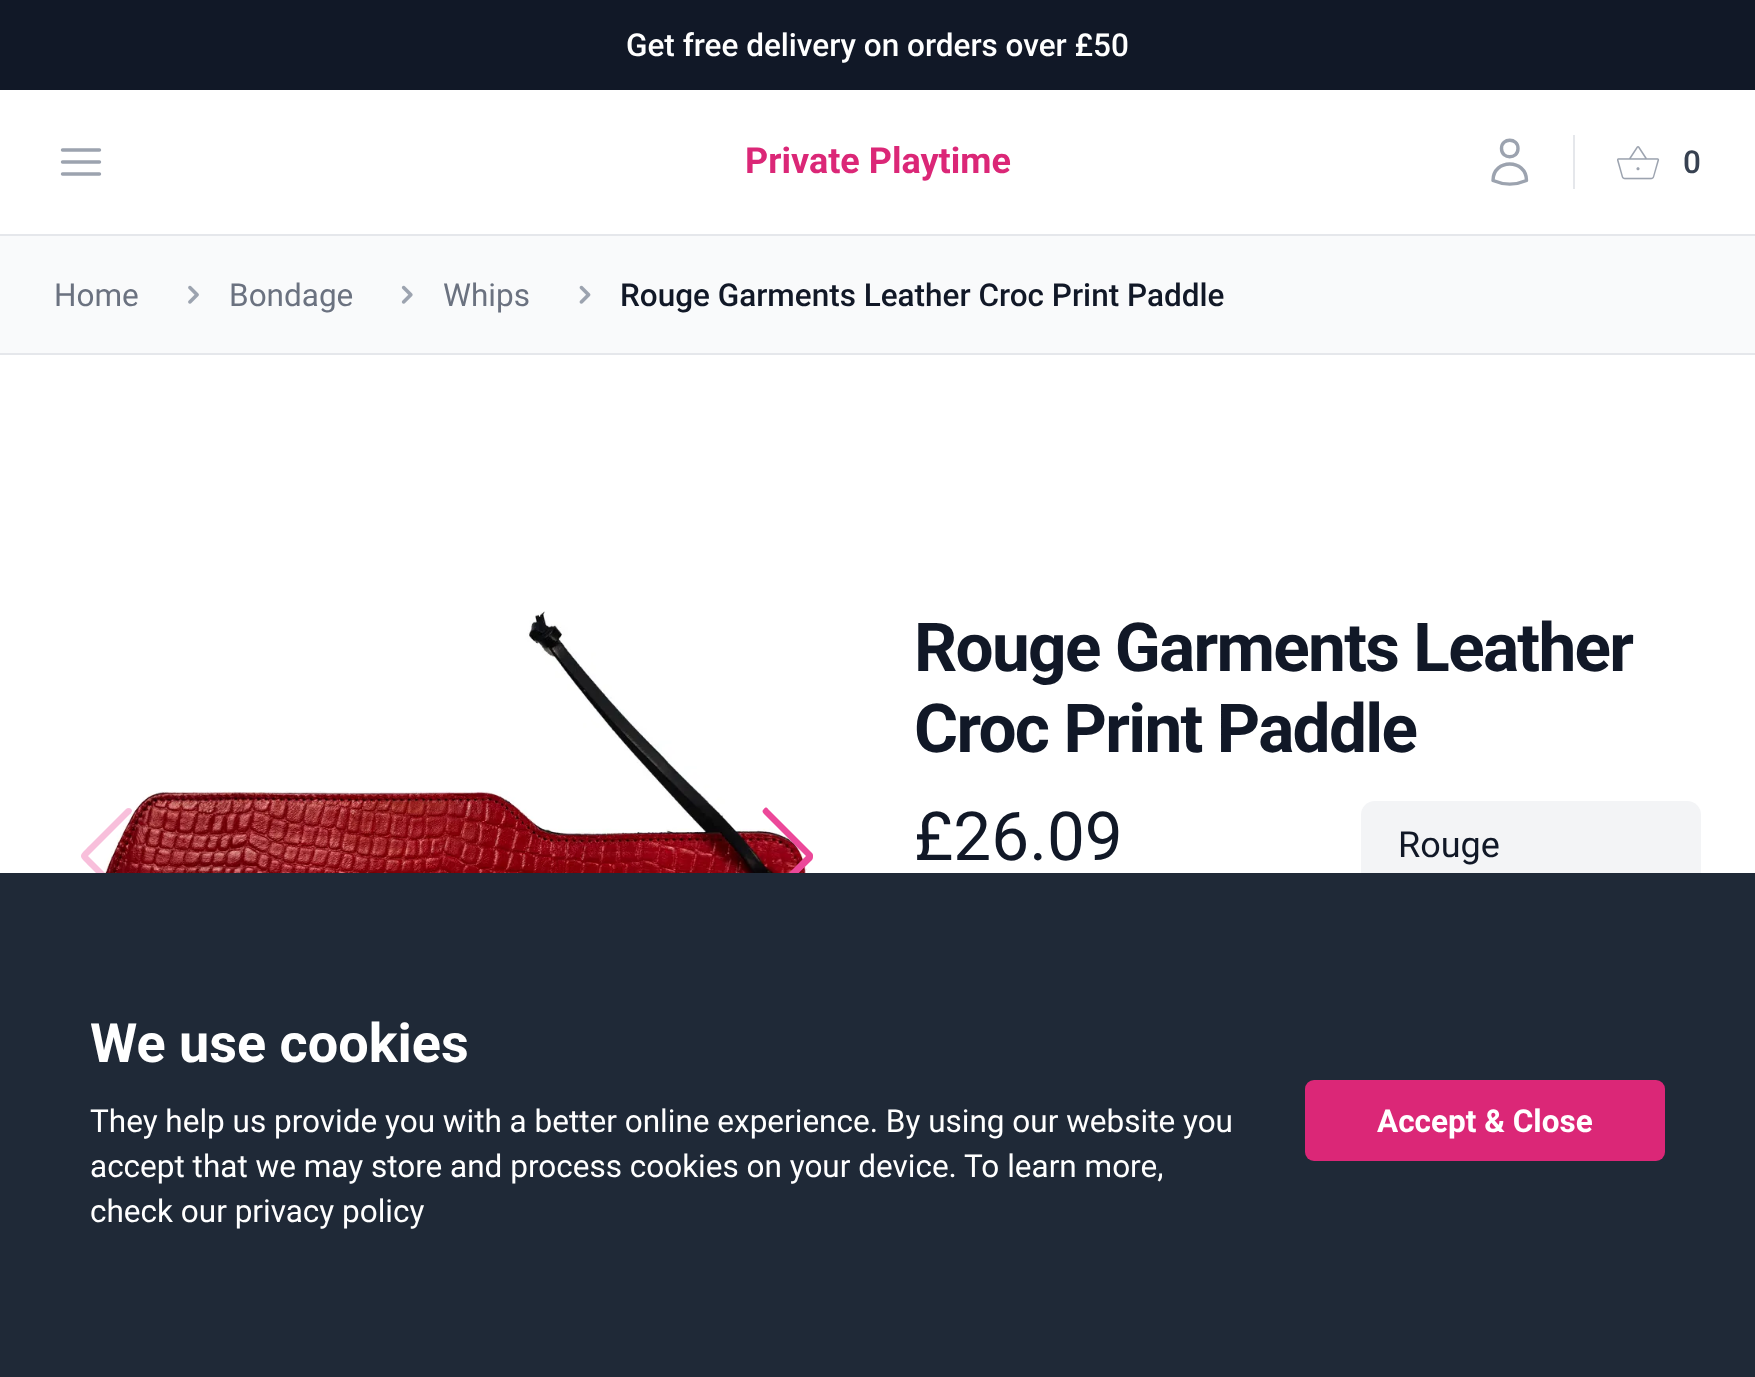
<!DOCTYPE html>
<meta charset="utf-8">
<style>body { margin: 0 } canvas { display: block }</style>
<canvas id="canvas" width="1755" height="1377"></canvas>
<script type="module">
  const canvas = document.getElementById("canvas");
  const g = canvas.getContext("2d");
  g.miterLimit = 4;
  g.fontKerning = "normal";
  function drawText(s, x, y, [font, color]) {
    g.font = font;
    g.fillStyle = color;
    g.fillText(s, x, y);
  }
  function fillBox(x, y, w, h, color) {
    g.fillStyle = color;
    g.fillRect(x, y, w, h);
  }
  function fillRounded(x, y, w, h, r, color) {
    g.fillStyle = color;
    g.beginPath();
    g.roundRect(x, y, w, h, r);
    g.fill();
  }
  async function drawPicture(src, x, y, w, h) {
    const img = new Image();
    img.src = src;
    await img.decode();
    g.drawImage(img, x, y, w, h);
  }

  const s1 = ["500 31.5px Roboto", "#FFFFFF"];
  const s2 = ["bold 36px Roboto", "#DB2777"];
  const s3 = ["500 31.5px Roboto", "#374151"];
  const s4 = ["31.5px Roboto", "#6B7280"];
  const s5 = ["500 31.5px Roboto", "#111827"];
  const s6 = ["bold 67.5px Roboto", "#111827"];
  const s7 = ["67.5px Roboto", "#111827"];
  const s8 = ["36px Roboto", "#111827"];
  const s9 = ["bold 54px Roboto", "#FFFFFF"];
  const s10 = ["31.5px Roboto", "#FFFFFF"];
  const s11 = ["bold 31.5px Roboto", "#FFFFFF"];

  fillBox(0, 0, 1755, 1377, "#FFFFFF");
  fillBox(0, 0, 1755, 90, "#111827");
  drawText("Get free delivery on orders over £50", 626, 56, s1);
  fillBox(0, 234, 1755, 2, "#E5E7EB");
  g.beginPath();
  g.moveTo(62.5, 150);
  g.lineTo(99.5, 150);
  g.moveTo(62.5, 162);
  g.lineTo(99.5, 162);
  g.moveTo(62.5, 174);
  g.lineTo(99.5, 174);
  g.strokeStyle = "#9CA3AF";
  g.lineWidth = 3.4;
  g.lineCap = "round";
  g.lineJoin = "round";
  g.stroke();
  drawText("Private Playtime", 745, 173, s2);
  g.beginPath();
  g.moveTo(1518, 148.5);
  g.bezierCurveTo(1518, 159.5, 1501.5, 159.5, 1501.5, 148.5);
  g.bezierCurveTo(1501.5, 137.5, 1518, 137.5, 1518, 148.5);
  g.closePath();
  g.moveTo(1493, 180.5);
  g.bezierCurveTo(1493, 158.5, 1526.5, 158.5, 1526.5, 180.5);
  g.bezierCurveTo(1516, 185, 1503.5, 185, 1493, 180.5);
  g.closePath();
  g.stroke();
  fillBox(1573, 135, 2, 54, "#E5E7EB");
  await drawPicture("pic1.png", 1617, 146, 43, 34);
  drawText("0", 1683, 173, s3);
  fillBox(0, 236, 1755, 117, "#F9FAFB");
  fillBox(0, 353, 1755, 2, "#E5E7EB");
  drawText("Home", 54, 306, s4);
  await drawPicture("pic2.png", 188, 285, 11, 19);
  drawText("Bondage", 229, 306, s4);
  await drawPicture("pic3.png", 401, 285, 12, 19);
  drawText("Whips", 443, 306, s4);
  await drawPicture("pic4.png", 579, 285, 12, 19);
  drawText("Rouge Garments Leather Croc Print Paddle", 620, 306, s5);
  await drawPicture("pic5.png", 101, 611, 709, 262);
  g.fillStyle = "rgba(236, 72, 153, 0.35)";
  g.beginPath();
  g.moveTo(126, 809);
  g.bezierCurveTo(128, 807, 132, 808, 132, 811);
  g.lineTo(131, 813);
  g.lineTo(88, 856);
  g.lineTo(131, 899);
  g.lineTo(132, 902);
  g.lineTo(130, 904);
  g.bezierCurveTo(126, 907, 119, 896, 119, 896);
  g.lineTo(90, 867);
  g.bezierCurveTo(78, 855, 78, 857, 90, 845);
  g.closePath();
  g.fill();
  g.fillStyle = "#EC4899";
  g.beginPath();
  g.moveTo(764, 903);
  g.bezierCurveTo(762, 902, 762, 900, 764, 898);
  g.lineTo(806, 856);
  g.lineTo(764, 814);
  g.bezierCurveTo(762, 812, 762, 810, 764, 809);
  g.bezierCurveTo(765, 807, 767, 807, 768, 809);
  g.lineTo(812, 853);
  g.bezierCurveTo(813, 854, 813, 855, 813, 856);
  g.bezierCurveTo(813, 857, 813, 859, 812, 860);
  g.lineTo(768, 903);
  g.bezierCurveTo(767, 905, 765, 905, 764, 903);
  g.closePath();
  g.fill();
  g.letterSpacing = "-1.7px";
  drawText("Rouge Garments Leather", 914, 671, s6);
  drawText("Croc Print Paddle", 914, 752, s6);
  g.letterSpacing = "0px";
  drawText("£26.09", 914, 860, s7);
  fillRounded(1361, 801, 340, 144, 14, "#F3F4F6");
  drawText("Rouge", 1398, 857, s8);
  fillBox(0, 873, 1755, 504, "#1F2937");
  drawText("We use cookies", 90, 1062, s9);
  drawText("They help us provide you with a better online experience. By using our website you", 90, 1132, s10);
  drawText("accept that we may store and process cookies on your device. To learn more,", 90, 1177, s10);
  drawText("check our privacy policy", 90, 1222, s10);
  fillRounded(1305, 1080, 360, 81, 9, "#DB2777");
  drawText("Accept & Close", 1377, 1132, s11);
</script>
